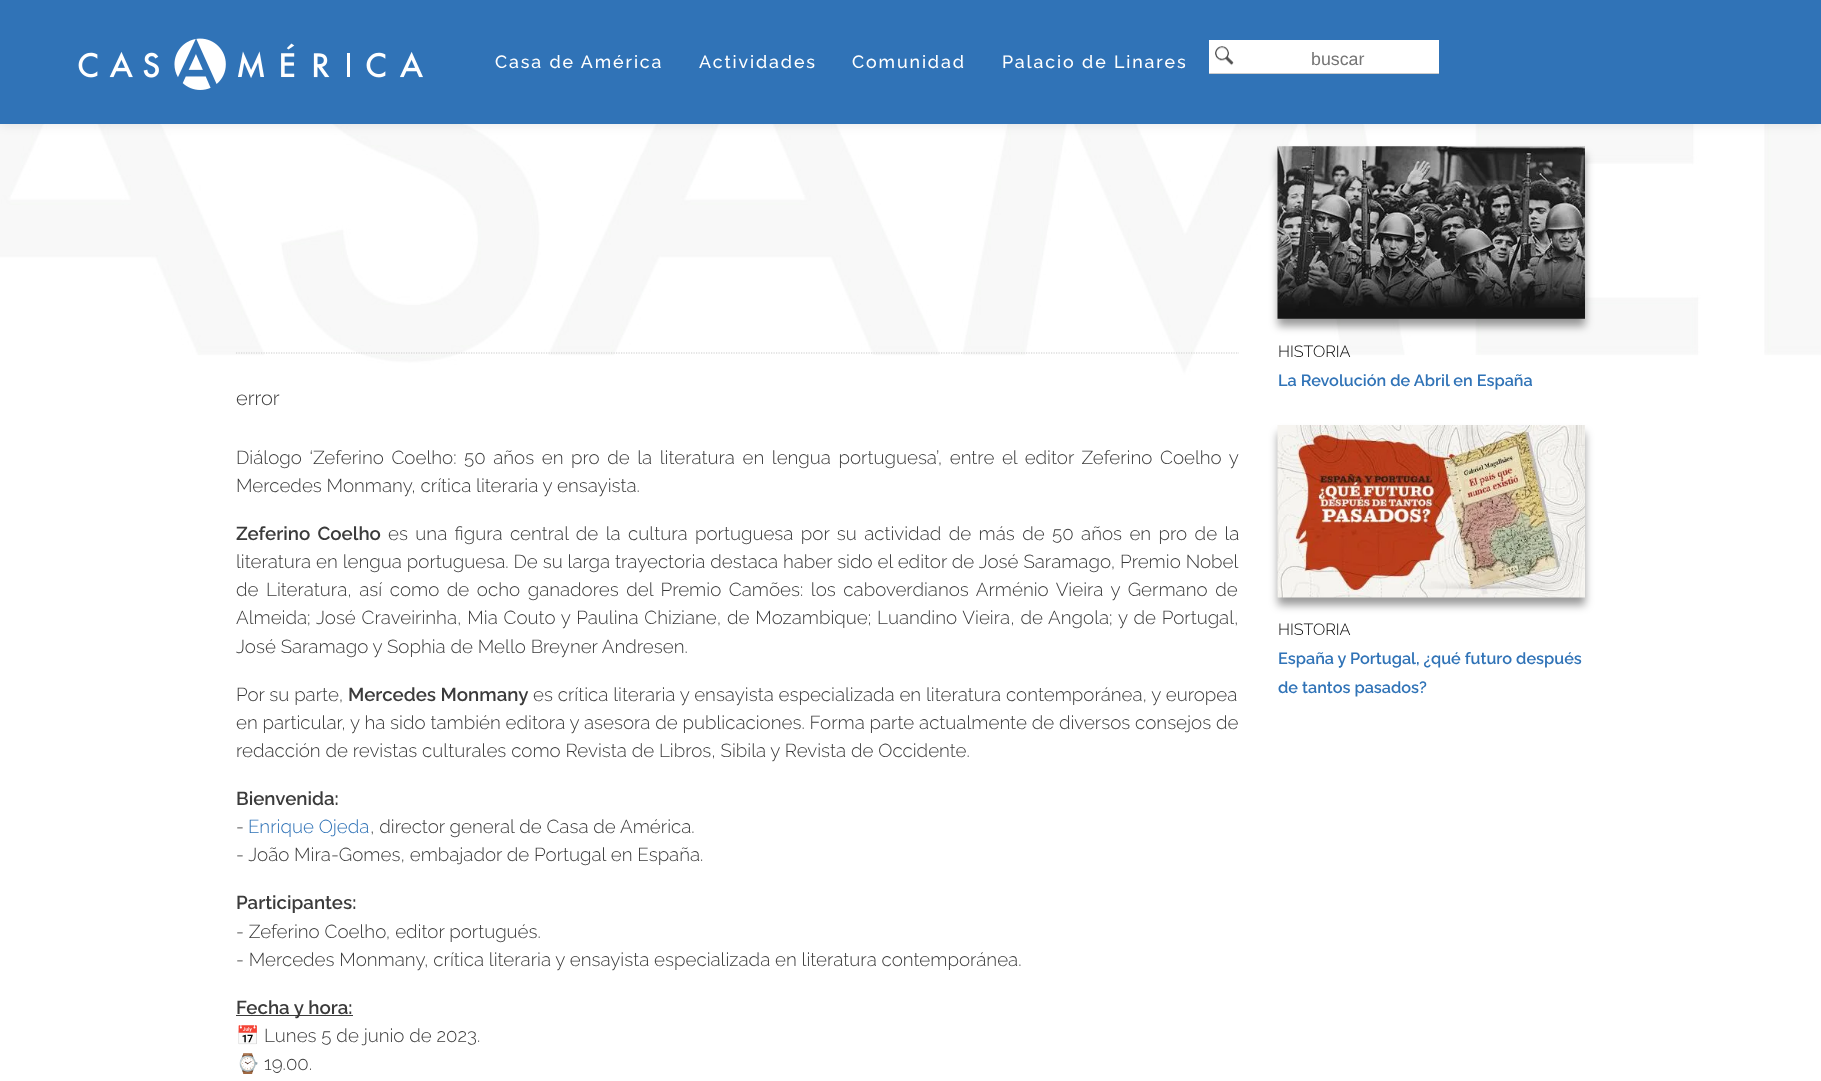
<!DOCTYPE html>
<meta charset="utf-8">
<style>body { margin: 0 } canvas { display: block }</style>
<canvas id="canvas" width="1821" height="1081"></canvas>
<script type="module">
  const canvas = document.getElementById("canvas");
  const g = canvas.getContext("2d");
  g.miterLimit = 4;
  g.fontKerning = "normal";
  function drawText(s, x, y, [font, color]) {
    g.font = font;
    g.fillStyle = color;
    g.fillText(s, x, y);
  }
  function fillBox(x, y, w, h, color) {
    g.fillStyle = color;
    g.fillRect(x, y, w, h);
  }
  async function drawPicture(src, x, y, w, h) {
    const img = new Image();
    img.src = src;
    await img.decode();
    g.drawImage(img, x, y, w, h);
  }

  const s1 = ["500 17.8px Raleway", "#FFFFFF"];
  const s2 = ["17.8px Liberation Sans", "#757575"];
  const s3 = ["300 20px Raleway", "#3B3B3B"];
  const s4 = ["300 18.75px Raleway", "#3B3B3B"];
  const s5 = ["600 18.75px Raleway", "#3B3B3B"];
  const s6 = ["300 18.75px Raleway", "#3073B7"];
  const s7 = ["18.75px Noto Color Emoji", "#3B3B3B"];
  const s8 = ["300 16.25px Raleway", "#000000"];
  const s9 = ["600 16.25px Raleway", "#3073B7"];

  fillBox(0, 0, 1821, 1081, "#FFFFFF");
  await drawPicture("pic1.png", 0, 124, 1821, 957);
  g.fillStyle = "rgba(0, 0, 0, 0.1)";
  g.filter = "blur(6px)";
  g.beginPath();
  g.rect(0, 0, 1821, 124);
  g.fill();
  g.filter = "none";
  fillBox(0, 0, 1821, 124, "#3073B7");
  await drawPicture("pic2.png", 78, 38, 345, 52);
  g.letterSpacing = "1.9px";
  drawText("Casa de América", 495, 68, s1);
  drawText("Actividades", 699, 68, s1);
  drawText("Comunidad", 852, 68, s1);
  drawText("Palacio de Linares", 1002, 68, s1);
  fillBox(1209, 40, 230, 33, "#FFFFFF");
  await drawPicture("pic3.png", 1215, 46, 19, 20);
  fillBox(1209, 73, 230, 1, "#CCCCCC");
  g.letterSpacing = "0px";
  drawText("buscar", 1311, 65, s2);
  g.beginPath();
  g.moveTo(236, 353);
  g.lineTo(1239, 353);
  g.strokeStyle = "#CCCCCC";
  g.lineWidth = 1.2;
  g.setLineDash([1.25, 1.25]);
  g.stroke();
  drawText("error", 236, 405, s3);
  g.wordSpacing = "2.75px";
  drawText("Diálogo ‘Zeferino Coelho: 50 años en pro de la literatura en lengua portuguesa’, entre el editor Zeferino Coelho y", 236, 464, s4);
  g.wordSpacing = "0px";
  drawText("Mercedes Monmany, crítica literaria y ensayista.", 236, 492, s4);
  g.wordSpacing = "2.6px";
  drawText("Zeferino Coelho", 236, 540, s5);
  drawText("es una figura central de la cultura portuguesa por su actividad de más de 50 años en pro de la", 388, 540, s4);
  g.wordSpacing = "0.1px";
  drawText("literatura en lengua portuguesa. De su larga trayectoria destaca haber sido el editor de José Saramago, Premio Nobel", 236, 568, s4);
  g.wordSpacing = "2.75px";
  drawText("de Literatura, así como de ocho ganadores del Premio Camões: los caboverdianos Arménio Vieira y Germano de", 236, 596, s4);
  g.wordSpacing = "1px";
  drawText("Almeida; José Craveirinha, Mia Couto y Paulina Chiziane, de Mozambique; Luandino Vieira, de Angola; y de Portugal,", 236, 624, s4);
  g.wordSpacing = "0px";
  drawText("José Saramago y Sophia de Mello Breyner Andresen.", 236, 653, s4);
  drawText("Por su parte,", 236, 701, s4);
  drawText("Mercedes Monmany", 348, 701, s5);
  drawText("es crítica literaria y ensayista especializada en literatura contemporánea, y europea", 533, 701, s4);
  drawText("en particular, y ha sido también editora y asesora de publicaciones. Forma parte actualmente de diversos consejos de", 236, 729, s4);
  drawText("redacción de revistas culturales como Revista de Libros, Sibila y Revista de Occidente.", 236, 757, s4);
  drawText("Bienvenida:", 236, 805, s5);
  drawText("-", 236, 833, s4);
  drawText("Enrique Ojeda", 248, 833, s6);
  drawText(", director general de Casa de América.", 370, 833, s4);
  drawText("- João Mira-Gomes, embajador de Portugal en España.", 236, 861, s4);
  drawText("Participantes:", 236, 909, s5);
  drawText("- Zeferino Coelho, editor portugués.", 236, 938, s4);
  drawText("- Mercedes Monmany, crítica literaria y ensayista especializada en literatura contemporánea.", 236, 966, s4);
  fillBox(236, 1015, 117, 1, "#3B3B3B");
  drawText("Fecha y hora:", 236, 1014, s5);
  drawText("📅", 236, 1042, s7);
  drawText("Lunes 5 de junio de 2023.", 264, 1042, s4);
  drawText("⌚", 236, 1070, s7);
  drawText("19.00.", 264, 1070, s4);
  g.fillStyle = "rgba(0, 0, 0, 0.4)";
  g.filter = "blur(4px)";
  g.beginPath();
  g.rect(1278, 154, 307, 172);
  g.fill();
  g.filter = "none";
  await drawPicture("pic4.png", 1277, 146, 308, 173);
  drawText("HISTORIA", 1278, 357, s8);
  drawText("La Revolución de Abril en España", 1278, 386, s9);
  g.fillStyle = "rgba(0, 0, 0, 0.4)";
  g.filter = "blur(4px)";
  g.beginPath();
  g.rect(1278, 433, 307, 172);
  g.fill();
  g.filter = "none";
  await drawPicture("pic5.png", 1277, 425, 308, 173);
  drawText("HISTORIA", 1278, 635, s8);
  drawText("España y Portugal, ¿qué futuro después", 1278, 664, s9);
  drawText("de tantos pasados?", 1278, 693, s9);
</script>
